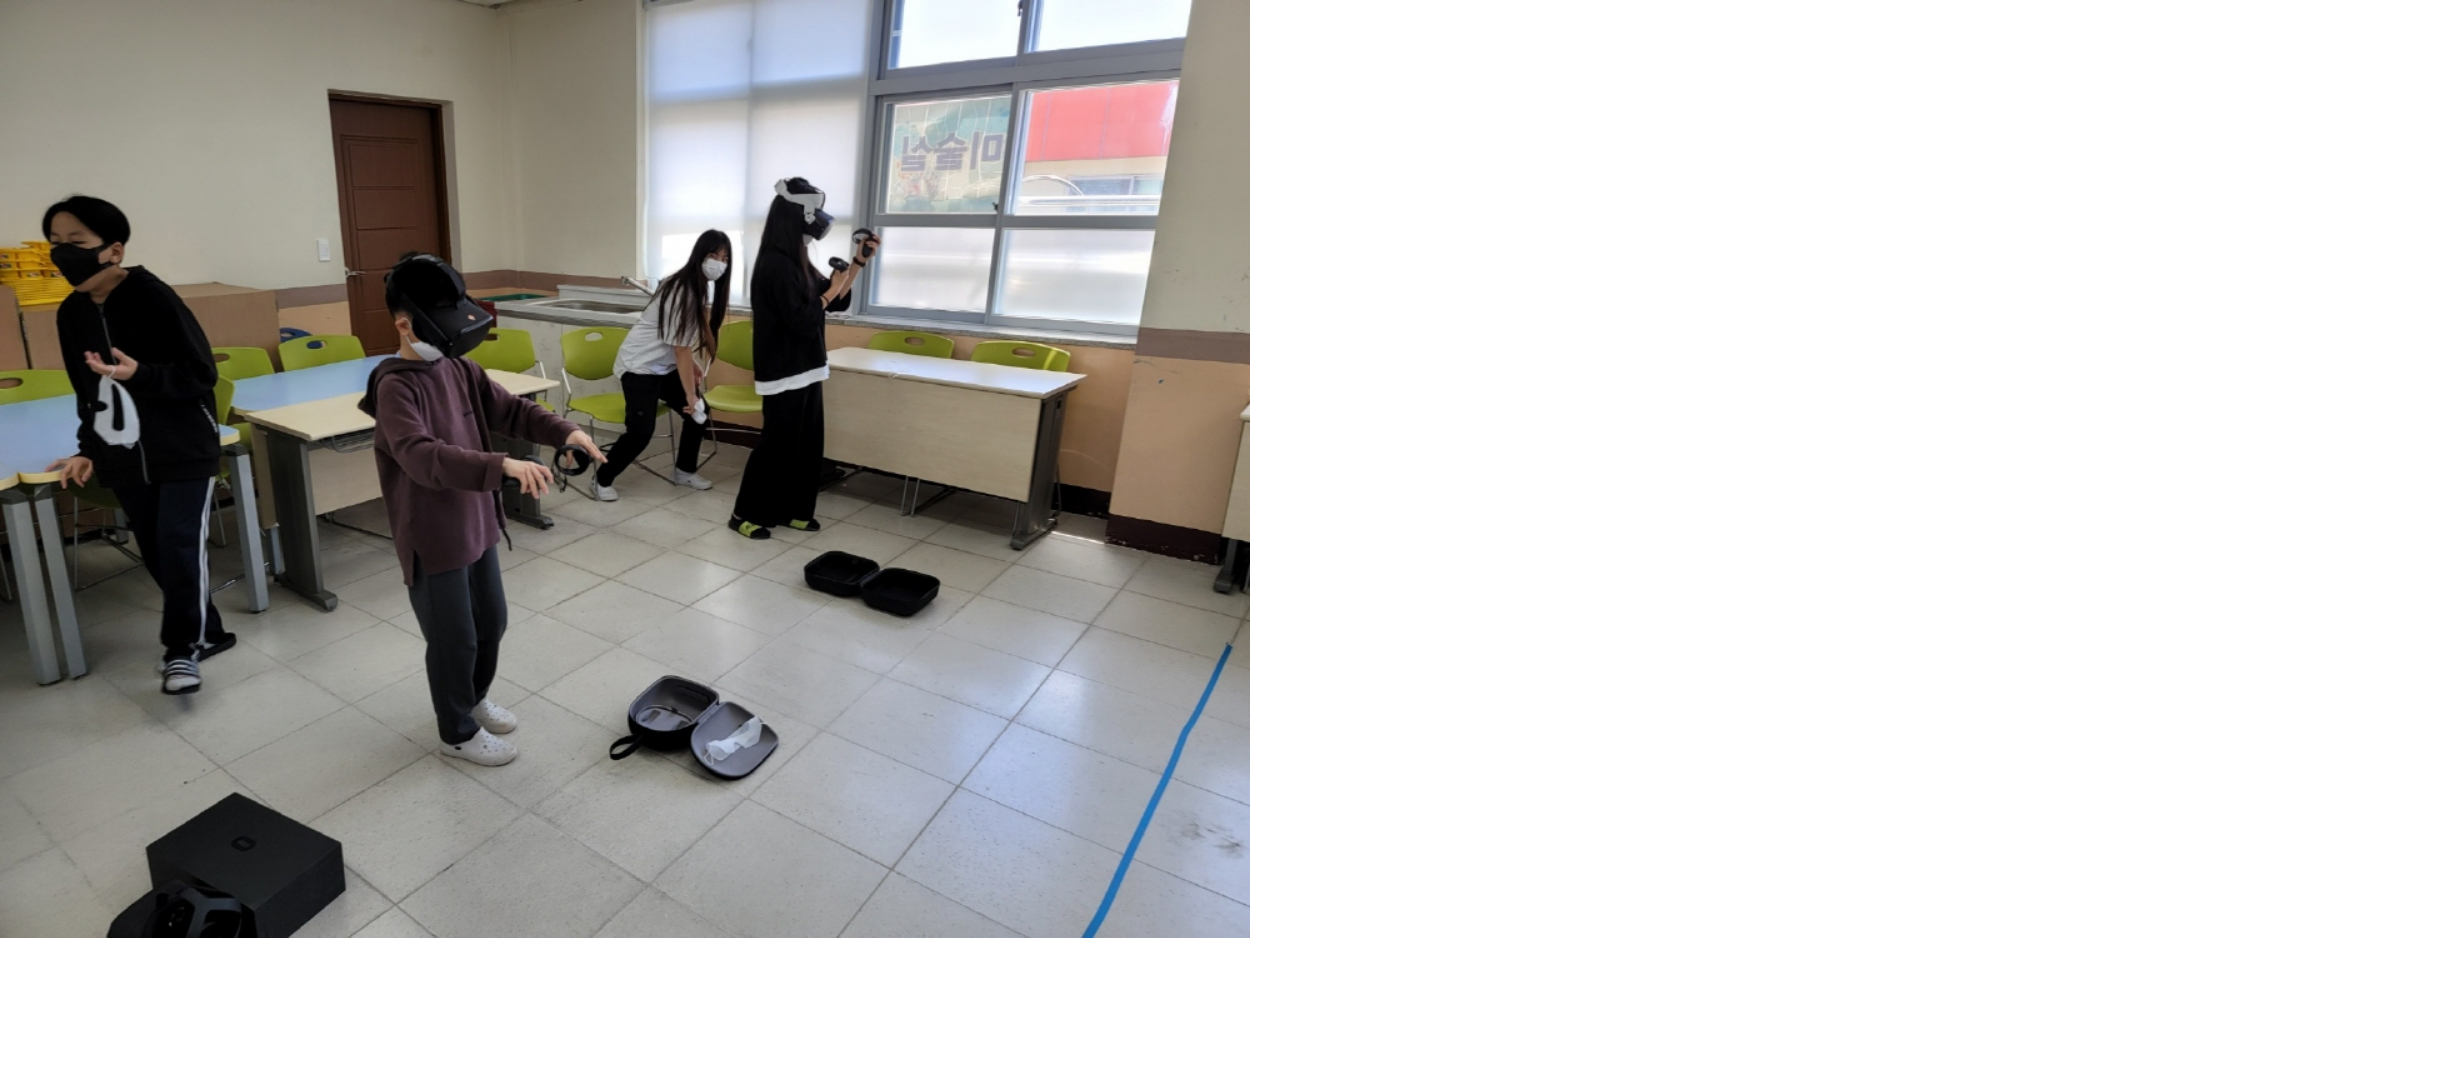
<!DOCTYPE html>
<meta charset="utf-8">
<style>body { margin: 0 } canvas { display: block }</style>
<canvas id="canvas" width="2449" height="1092"></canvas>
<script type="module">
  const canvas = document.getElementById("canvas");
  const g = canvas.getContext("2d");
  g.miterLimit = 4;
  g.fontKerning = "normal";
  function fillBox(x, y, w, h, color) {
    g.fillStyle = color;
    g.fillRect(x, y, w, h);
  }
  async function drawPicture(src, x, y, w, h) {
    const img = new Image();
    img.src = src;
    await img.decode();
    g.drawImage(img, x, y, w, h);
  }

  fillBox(0, 0, 2449, 1092, "#FFFFFF");
  await drawPicture("pic1.png", 0, 0, 1250, 938);
</script>
